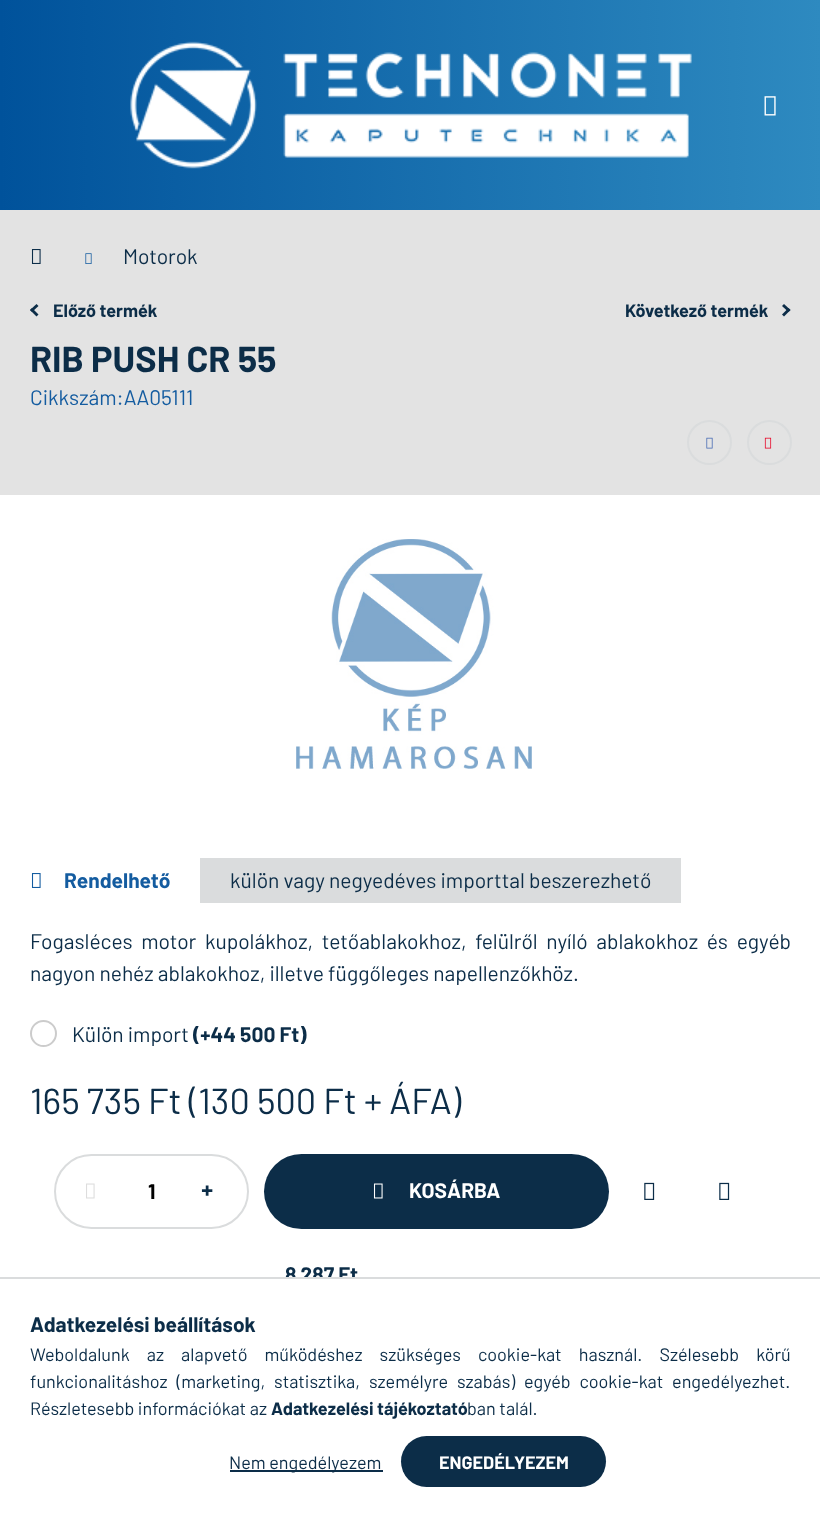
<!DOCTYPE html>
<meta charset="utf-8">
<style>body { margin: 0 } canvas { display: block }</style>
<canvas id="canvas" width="820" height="1516"></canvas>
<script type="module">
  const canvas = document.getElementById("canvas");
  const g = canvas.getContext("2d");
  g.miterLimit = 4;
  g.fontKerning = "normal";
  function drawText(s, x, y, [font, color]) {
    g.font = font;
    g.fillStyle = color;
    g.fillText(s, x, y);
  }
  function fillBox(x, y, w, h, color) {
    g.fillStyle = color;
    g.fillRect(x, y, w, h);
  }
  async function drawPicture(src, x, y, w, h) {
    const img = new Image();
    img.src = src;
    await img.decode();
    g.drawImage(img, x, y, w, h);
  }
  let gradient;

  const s1 = ["21px Barlow", "#0C2D48"];
  const s2 = ["bold 18px Barlow", "#0C2D48"];
  const s3 = ["bold 36px Barlow", "#0C2D48"];
  const s4 = ["21px Barlow", "#145CA0"];
  const s5 = ["bold 21px Barlow", "#145CA0"];
  const s6 = ["bold 21px Barlow", "#0C2D48"];
  const s7 = ["36px Barlow", "#0C2D48"];
  const s8 = ["bold 21px Barlow", "#000000"];
  const s9 = ["900 21px Noto Sans", "#0C2D48"];
  const s10 = ["bold 21px Barlow", "#FFFFFF"];
  const s11 = ["18px Barlow", "#0C2D48"];
  const s12 = ["bold 18px Barlow", "#FFFFFF"];

  fillBox(0, 0, 820, 1516, "#E3E3E3");
  gradient = g.createLinearGradient(0, 758, 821, 758);
  gradient.addColorStop(0, "#00529B");
  gradient.addColorStop(1, "#2E8AC0");
  g.fillStyle = gradient;
  g.fillRect(0, 0, 820, 210);
  await drawPicture("pic1.png", 130, 41, 562, 128);
  await drawPicture("pic2.png", 764, 96, 12, 20);
  await drawPicture("pic3.png", 31, 249, 10, 15);
  await drawPicture("pic4.png", 85, 253, 7, 11);
  drawText("Motorok", 123, 264, s1);
  g.beginPath();
  g.moveTo(30, 310);
  g.lineTo(36.5, 304);
  g.lineTo(38.5, 306);
  g.lineTo(32, 312);
  g.closePath();
  g.fill();
  g.beginPath();
  g.moveTo(32, 308);
  g.lineTo(38.5, 314.5);
  g.lineTo(36.5, 316.5);
  g.lineTo(30, 310);
  g.closePath();
  g.fill();
  drawText("Előző termék", 53, 317, s2);
  drawText("Következő termék", 625, 317, s2);
  g.beginPath();
  g.moveTo(782, 314.5);
  g.lineTo(788.5, 308);
  g.lineTo(790.5, 310);
  g.lineTo(784, 316.5);
  g.closePath();
  g.fill();
  g.beginPath();
  g.moveTo(784, 304);
  g.lineTo(790.5, 310);
  g.lineTo(788.5, 312);
  g.lineTo(782, 306);
  g.closePath();
  g.fill();
  drawText("RIB PUSH CR 55", 30, 372, s3);
  drawText("Cikkszám:AA05111", 30, 405, s4);
  g.beginPath();
  g.arc(709.5, 442.5, 21.5, 0, Math.PI * 2);
  g.strokeStyle = "#DADCDD";
  g.lineWidth = 2;
  g.stroke();
  await drawPicture("pic5.png", 706, 437, 7, 12);
  g.beginPath();
  g.arc(769.5, 442.5, 21.5, 0, Math.PI * 2);
  g.stroke();
  await drawPicture("pic6.png", 764, 437, 8, 12);
  fillBox(0, 495, 820, 782, "#FFFFFF");
  await drawPicture("pic7.png", 296, 539, 236, 230);
  await drawPicture("pic8.png", 31, 873, 10, 15);
  drawText("Rendelhető", 64, 888, s5);
  fillBox(200, 858, 481, 45, "#DADCDD");
  drawText("külön vagy negyedéves importtal beszerezhető", 230, 888, s1);
  g.wordSpacing = "4.5px";
  drawText("Fogasléces motor kupolákhoz, tetőablakokhoz, felülről nyíló ablakokhoz és egyéb", 30, 949, s1);
  g.wordSpacing = "0px";
  drawText("nagyon nehéz ablakokhoz, illetve függőleges napellenzőkhöz.", 30, 981, s1);
  g.beginPath();
  g.arc(43.5, 1033.5, 12.5, 0, Math.PI * 2);
  g.strokeStyle = "#CCCCCC";
  g.stroke();
  drawText("Külön import", 72, 1042, s1);
  drawText("(+44 500 Ft)", 193, 1042, s6);
  drawText("165 735 Ft (130 500 Ft + ÁFA)", 30, 1114, s7);
  g.beginPath();
  g.roundRect(55, 1155, 193, 73, 36.5);
  g.strokeStyle = "#DADCDD";
  g.stroke();
  await drawPicture("pic9.png", 86, 1183, 9, 16);
  drawText("1", 148, 1199, s8);
  drawText("+", 201, 1198, s9);
  gradient = g.createLinearGradient(264, 1191, 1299, 1191);
  gradient.addColorStop(0.33, "#0C2D48");
  gradient.addColorStop(0.67, "#2E8AC0");
  g.fillStyle = gradient;
  g.beginPath();
  g.roundRect(264, 1154, 345, 75, 37.5);
  g.fill();
  await drawPicture("pic10.png", 373, 1183, 10, 16);
  drawText("KOSÁRBA", 409, 1198, s10);
  await drawPicture("pic11.png", 644, 1182, 11, 18);
  await drawPicture("pic11.png", 719, 1182, 11, 18);
  drawText("8 287 Ft", 285, 1282, s6);
  fillBox(0, 1279, 820, 237, "#FFFFFF");
  fillBox(0, 1277, 820, 2, "#DADCDD");
  drawText("Adatkezelési beállítások", 30, 1332, s6);
  g.wordSpacing = "13.5px";
  drawText("Weboldalunk az alapvető működéshez szükséges cookie-kat használ. Szélesebb körű", 30, 1361, s11);
  g.wordSpacing = "5.25px";
  drawText("funkcionalitáshoz (marketing, statisztika, személyre szabás) egyéb cookie-kat engedélyezhet.", 30, 1388, s11);
  g.wordSpacing = "0px";
  drawText("Részletesebb információkat az", 30, 1415, s11);
  drawText("Adatkezelési tájékoztató", 271, 1415, s2);
  drawText("ban talál.", 467, 1415, s11);
  fillBox(230, 1470, 153, 2, "#0C2D48");
  drawText("Nem engedélyezem", 229, 1469, s11);
  gradient = g.createLinearGradient(401, 1461, 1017, 1461);
  gradient.addColorStop(0.33, "#0C2D48");
  gradient.addColorStop(0.67, "#2E8AC0");
  g.fillStyle = gradient;
  g.beginPath();
  g.roundRect(401, 1436, 205, 51, 25.5);
  g.fill();
  drawText("ENGEDÉLYEZEM", 439, 1469, s12);
</script>
